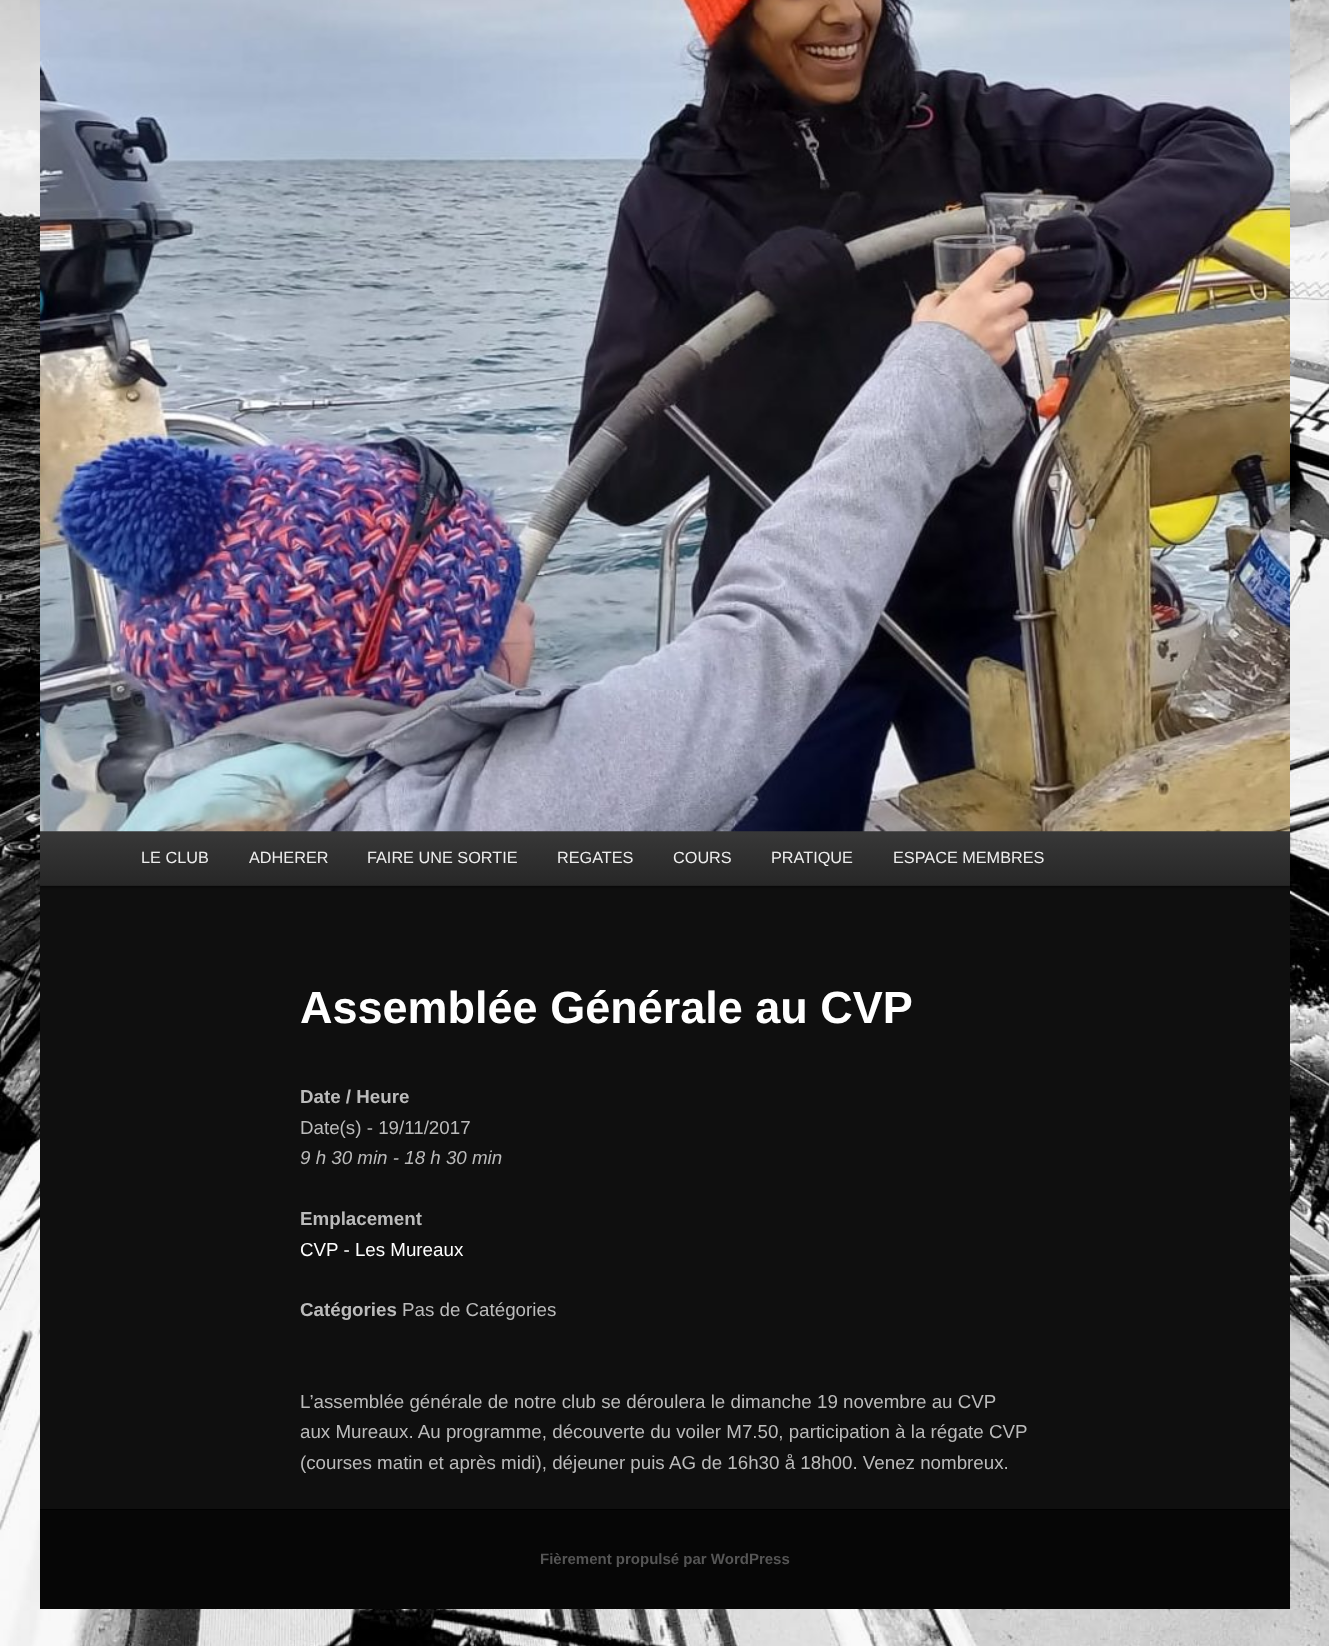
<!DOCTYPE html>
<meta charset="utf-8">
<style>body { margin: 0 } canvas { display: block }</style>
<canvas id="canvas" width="1329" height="1646"></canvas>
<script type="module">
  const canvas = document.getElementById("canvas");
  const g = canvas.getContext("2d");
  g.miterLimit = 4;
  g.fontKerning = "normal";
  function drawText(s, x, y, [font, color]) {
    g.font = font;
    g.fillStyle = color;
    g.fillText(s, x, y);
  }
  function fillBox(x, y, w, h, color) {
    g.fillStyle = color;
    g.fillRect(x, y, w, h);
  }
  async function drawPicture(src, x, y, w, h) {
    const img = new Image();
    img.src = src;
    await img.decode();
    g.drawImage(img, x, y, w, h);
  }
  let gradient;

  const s1 = ["16.25px Liberation Sans", "#EEEEEE"];
  const s2 = ["bold 45px Liberation Sans", "#FFFFFF"];
  const s3 = ["bold 18.75px Liberation Sans", "#BBBBBB"];
  const s4 = ["18.75px Liberation Sans", "#BBBBBB"];
  const s5 = ["italic 18.75px Liberation Sans", "#BBBBBB"];
  const s6 = ["18.75px Liberation Sans", "#FFFFFF"];
  const s7 = ["bold 15px Liberation Sans", "#555555"];

  fillBox(0, 0, 1329, 1646, "#FFFFFF");
  await drawPicture("pic1.png", 0, 0, 1329, 1646);
  fillBox(40, 886, 1250, 623, "#0F0F0F");
  g.fillStyle = "rgba(0, 0, 0, 0.4)";
  g.filter = "blur(1px)";
  g.beginPath();
  g.rect(40, 833, 1250, 55);
  g.fill();
  g.filter = "none";
  gradient = g.createLinearGradient(665, 831, 665, 885);
  gradient.addColorStop(0, "#383838");
  gradient.addColorStop(1, "#272727");
  g.fillStyle = gradient;
  g.fillRect(40, 831, 1250, 54);
  await drawPicture("pic2.png", 40, 0, 1250, 832);
  fillBox(40, 885, 1250, 1, "#222222");
  drawText("LE CLUB", 141, 863, s1);
  drawText("ADHERER", 249, 863, s1);
  drawText("FAIRE UNE SORTIE", 367, 863, s1);
  drawText("REGATES", 557, 863, s1);
  drawText("COURS", 673, 863, s1);
  drawText("PRATIQUE", 771, 863, s1);
  drawText("ESPACE MEMBRES", 893, 863, s1);
  drawText("Assemblée Générale au CVP", 300, 1023, s2);
  drawText("Date / Heure", 300, 1103, s3);
  drawText("Date(s) - 19/11/2017", 300, 1134, s4);
  drawText("9 h 30 min - 18 h 30 min", 300, 1164, s5);
  drawText("Emplacement", 300, 1225, s3);
  drawText("CVP - Les Mureaux", 300, 1256, s6);
  drawText("Catégories", 300, 1316, s3);
  drawText("Pas de Catégories", 402, 1316, s4);
  drawText("L’assemblée générale de notre club se déroulera le dimanche 19 novembre au CVP", 300, 1408, s4);
  drawText("aux Mureaux. Au programme, découverte du voiler M7.50, participation à la régate CVP", 300, 1438, s4);
  drawText("(courses matin et après midi), déjeuner puis AG de 16h30 å 18h00. Venez nombreux.", 300, 1469, s4);
  fillBox(40, 1510, 1250, 99, "#060606");
  fillBox(40, 1509, 1250, 1, "#000000");
  drawText("Fièrement propulsé par WordPress", 540, 1564, s7);
</script>
